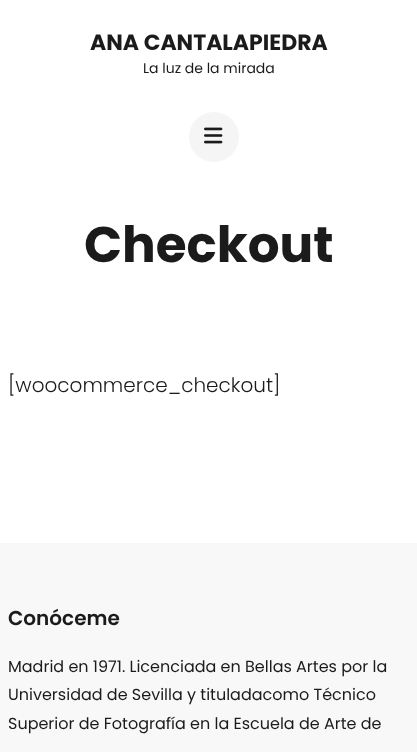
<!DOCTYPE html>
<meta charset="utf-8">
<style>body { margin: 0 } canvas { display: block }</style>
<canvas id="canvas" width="417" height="752"></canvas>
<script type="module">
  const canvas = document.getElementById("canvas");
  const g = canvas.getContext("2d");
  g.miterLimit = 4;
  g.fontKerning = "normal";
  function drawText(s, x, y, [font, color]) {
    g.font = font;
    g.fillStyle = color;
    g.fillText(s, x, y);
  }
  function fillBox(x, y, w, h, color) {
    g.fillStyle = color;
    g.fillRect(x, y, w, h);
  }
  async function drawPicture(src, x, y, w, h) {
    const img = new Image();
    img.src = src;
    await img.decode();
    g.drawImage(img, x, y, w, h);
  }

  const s1 = ["bold 22px Poppins", "#1C1B1B"];
  const s2 = ["14px Poppins", "#1C1B1B"];
  const s3 = ["bold 50px Poppins", "#1C1B1B"];
  const s4 = ["300 20px Poppins", "#1C1B1B"];
  const s5 = ["600 20px Poppins", "#1C1B1B"];
  const s6 = ["16px Poppins", "#1C1B1B"];

  fillBox(0, 0, 417, 752, "#FFFFFF");
  drawText("ANA CANTALAPIEDRA", 90, 50, s1);
  drawText("La luz de la mirada", 143, 73, s2);
  g.fillStyle = "#F5F5F5";
  g.beginPath();
  g.arc(214, 137, 25, 0, Math.PI * 2);
  g.fill();
  await drawPicture("pic1.png", 204, 127, 19, 17);
  drawText("Checkout", 84, 262, s3);
  drawText("[woocommerce_checkout]", 8, 392, s4);
  fillBox(0, 543, 417, 209, "#F8F8F8");
  drawText("Conóceme", 8, 625, s5);
  drawText("Madrid en 1971. Licenciada en Bellas Artes por la", 8, 672, s6);
  drawText("Universidad de Sevilla y tituladacomo Técnico", 8, 700, s6);
  drawText("Superior de Fotografía en la Escuela de Arte de", 8, 729, s6);
</script>
